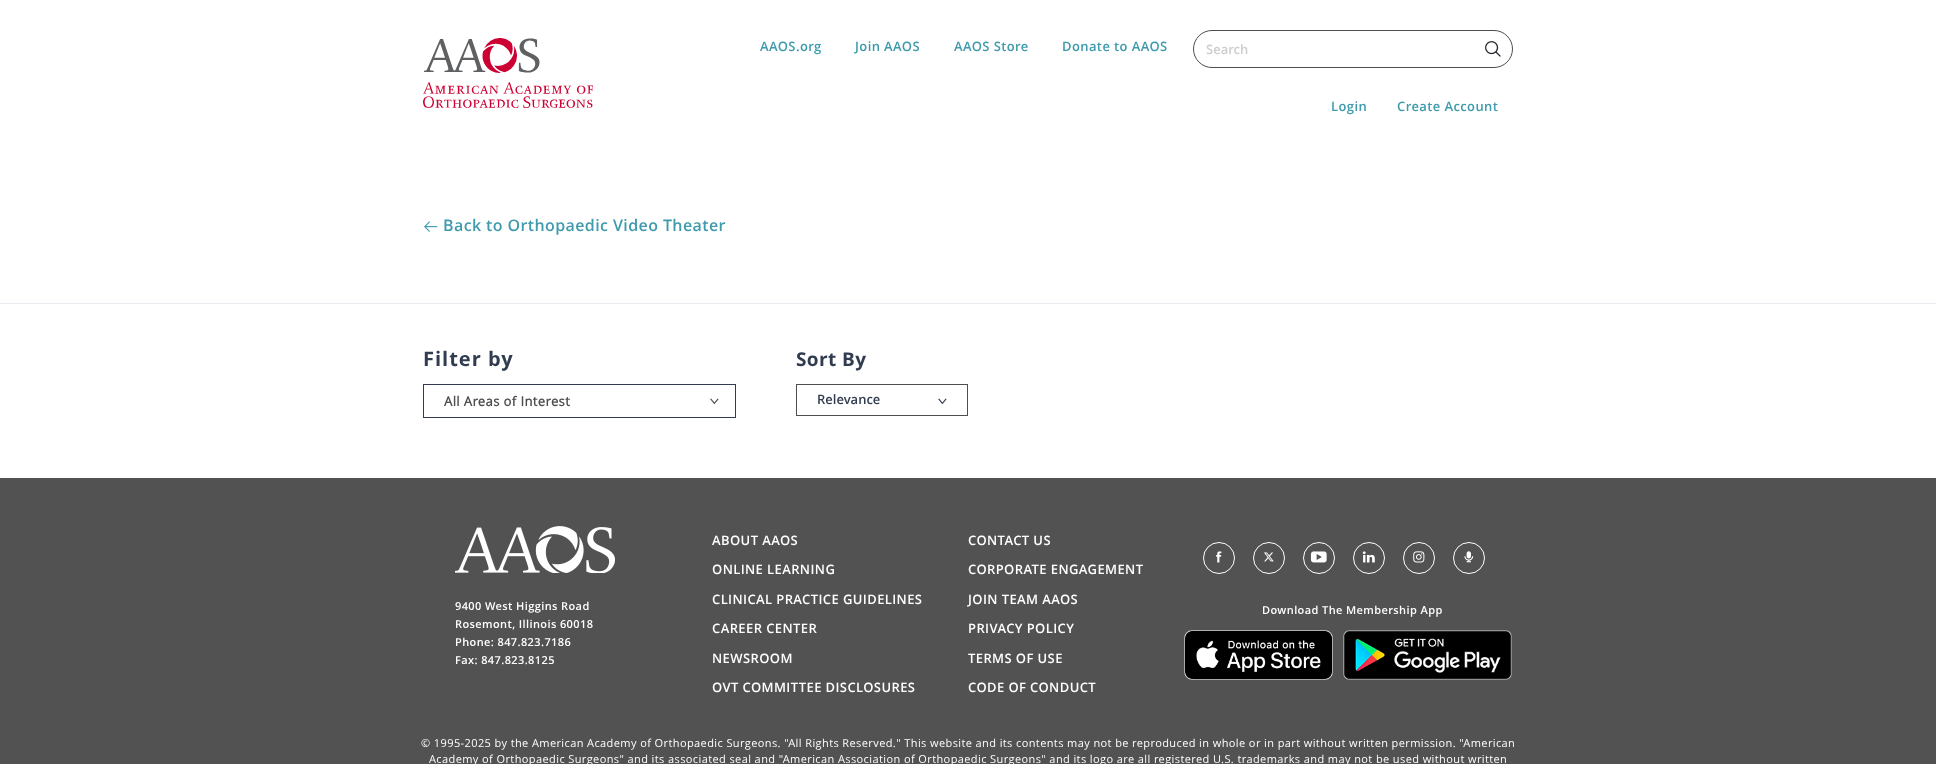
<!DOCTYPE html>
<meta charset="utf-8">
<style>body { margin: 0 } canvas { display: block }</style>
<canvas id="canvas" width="1936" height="764"></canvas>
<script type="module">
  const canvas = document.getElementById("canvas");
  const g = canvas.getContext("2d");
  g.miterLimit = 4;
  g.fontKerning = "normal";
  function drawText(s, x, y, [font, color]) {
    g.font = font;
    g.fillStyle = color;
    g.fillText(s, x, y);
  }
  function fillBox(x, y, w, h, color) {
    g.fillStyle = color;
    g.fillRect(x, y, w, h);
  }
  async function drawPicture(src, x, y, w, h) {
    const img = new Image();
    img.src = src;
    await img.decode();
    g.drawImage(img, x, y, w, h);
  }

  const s1 = ["600 13px Open Sans", "#3E9AAC"];
  const s2 = ["600 13px Open Sans", "#CDCDCD"];
  const s3 = ["600 16px Open Sans", "#3E9AAC"];
  const s4 = ["bold 20px Open Sans", "#313C50"];
  const s5 = ["bold 13px 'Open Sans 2'", "#4E4E4E"];
  const s6 = ["bold 19px Open Sans", "#313C50"];
  const s7 = ["600 13px Open Sans", "#313C50"];
  const s8 = ["600 11px Open Sans", "#FFFFFF"];
  const s9 = ["600 13px Open Sans", "#FFFFFF"];
  const s10 = ["11px Open Sans", "#FFFFFF"];

  fillBox(0, 0, 1936, 764, "#FFFFFF");
  await drawPicture("pic1.png", 423, 38, 170, 70);
  g.letterSpacing = "0.4px";
  drawText("AAOS.org", 760, 51, s1);
  drawText("Join AAOS", 855, 51, s1);
  drawText("AAOS Store", 954, 51, s1);
  drawText("Donate to AAOS", 1062, 51, s1);
  g.beginPath();
  g.roundRect(1193.5, 30.5, 319, 37, 18.5);
  g.strokeStyle = "#4E4E4E";
  g.stroke();
  g.letterSpacing = "0px";
  drawText("Search", 1206, 54, s2);
  await drawPicture("pic2.png", 1485, 41, 16, 16);
  g.letterSpacing = "0.4px";
  drawText("Login", 1331, 111, s1);
  drawText("Create Account", 1397, 111, s1);
  fillBox(0, 303, 1936, 1, "#EAEBF0");
  await drawPicture("pic3.png", 424, 221, 14, 11);
  drawText("Back to Orthopaedic Video Theater", 443, 231, s3);
  g.letterSpacing = "1px";
  drawText("Filter by", 423, 366, s4);
  g.strokeStyle = "#313C50";
  g.strokeRect(423.5, 384.5, 312, 33);
  g.letterSpacing = "0.4px";
  drawText("All Areas of Interest", 444, 406, s5);
  await drawPicture("pic4.png", 710, 398, 9, 7);
  drawText("Sort By", 796, 366, s6);
  g.strokeStyle = "#4E4E4E";
  g.strokeRect(796.5, 384.5, 171, 31);
  g.letterSpacing = "0px";
  drawText("Relevance", 817, 404, s7);
  await drawPicture("pic5.png", 938, 398, 9, 7);
  fillBox(0, 478, 1936, 286, "#525252");
  await drawPicture("pic6.png", 455, 526, 160, 47);
  g.letterSpacing = "0.4px";
  drawText("9400 West Higgins Road", 455, 610, s8);
  drawText("Rosemont, Illinois 60018", 455, 628, s8);
  drawText("Phone: 847.823.7186", 455, 646, s8);
  drawText("Fax: 847.823.8125", 455, 664, s8);
  drawText("ABOUT AAOS", 712, 545, s9);
  drawText("ONLINE LEARNING", 712, 574, s9);
  drawText("CLINICAL PRACTICE GUIDELINES", 712, 604, s9);
  drawText("CAREER CENTER", 712, 633, s9);
  drawText("NEWSROOM", 712, 663, s9);
  drawText("OVT COMMITTEE DISCLOSURES", 712, 692, s9);
  drawText("CONTACT US", 968, 545, s9);
  drawText("CORPORATE ENGAGEMENT", 968, 574, s9);
  drawText("JOIN TEAM AAOS", 968, 604, s9);
  drawText("PRIVACY POLICY", 968, 633, s9);
  drawText("TERMS OF USE", 968, 663, s9);
  drawText("CODE OF CONDUCT", 968, 692, s9);
  g.beginPath();
  g.arc(1219, 558, 15.5, 0, Math.PI * 2);
  g.strokeStyle = "#FFFFFF";
  g.stroke();
  await drawPicture("pic7.png", 1216, 551, 6, 12);
  g.beginPath();
  g.arc(1269, 558, 15.5, 0, Math.PI * 2);
  g.stroke();
  await drawPicture("pic8.png", 1264, 552, 10, 10);
  g.beginPath();
  g.arc(1319, 558, 15.5, 0, Math.PI * 2);
  g.stroke();
  await drawPicture("pic9.png", 1310, 551, 17, 12);
  g.beginPath();
  g.arc(1369, 558, 15.5, 0, Math.PI * 2);
  g.stroke();
  await drawPicture("pic10.png", 1362, 551, 13, 12);
  g.beginPath();
  g.arc(1419, 558, 15.5, 0, Math.PI * 2);
  g.stroke();
  await drawPicture("pic11.png", 1413, 551, 12, 12);
  g.beginPath();
  g.arc(1469, 558, 15.5, 0, Math.PI * 2);
  g.stroke();
  await drawPicture("pic12.png", 1464, 551, 10, 12);
  drawText("Download The Membership App", 1262, 614, s8);
  await drawPicture("pic13.png", 1184, 630, 149, 50);
  await drawPicture("pic14.png", 1343, 630, 169, 50);
  drawText("© 1995-2025 by the American Academy of Orthopaedic Surgeons. \"All Rights Reserved.\" This website and its contents may not be reproduced in whole or in part without written permission. \"American", 421, 747, s10);
  drawText("Academy of Orthopaedic Surgeons\" and its associated seal and \"American Association of Orthopaedic Surgeons\" and its logo are all registered U.S. trademarks and may not be used without written", 429, 763, s10);
</script>
